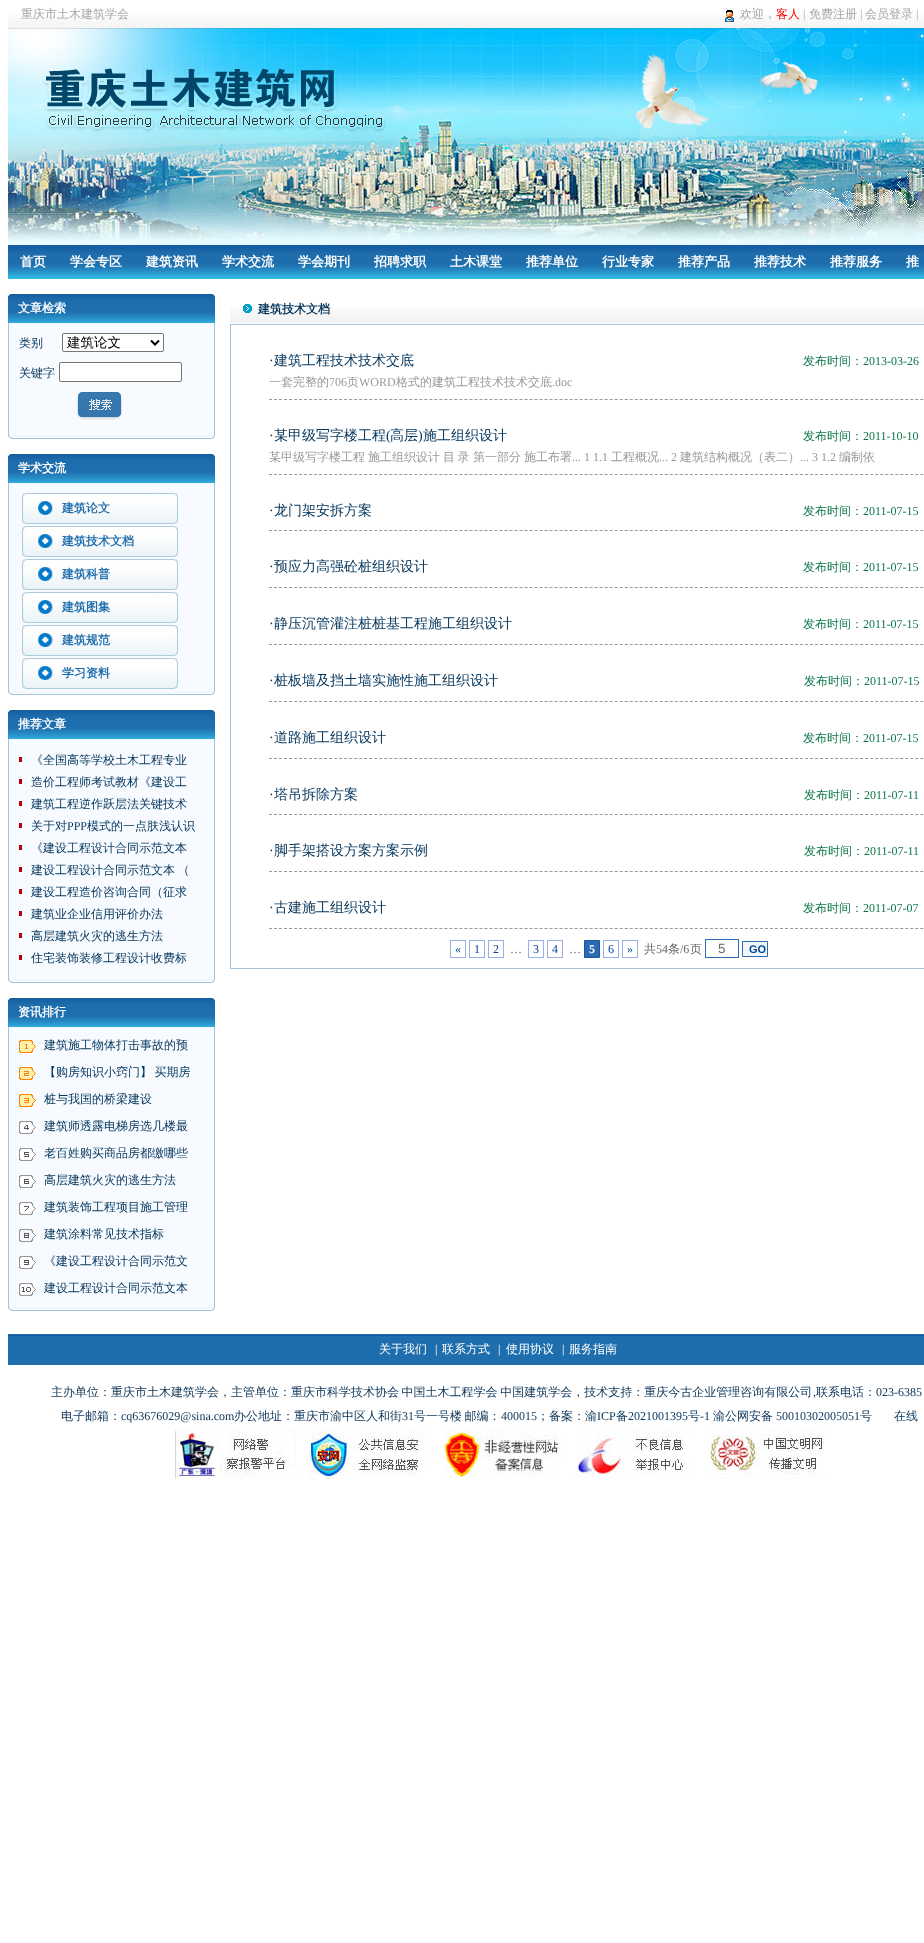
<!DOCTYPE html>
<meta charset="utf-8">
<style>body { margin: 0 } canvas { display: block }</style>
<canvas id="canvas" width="924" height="1943"></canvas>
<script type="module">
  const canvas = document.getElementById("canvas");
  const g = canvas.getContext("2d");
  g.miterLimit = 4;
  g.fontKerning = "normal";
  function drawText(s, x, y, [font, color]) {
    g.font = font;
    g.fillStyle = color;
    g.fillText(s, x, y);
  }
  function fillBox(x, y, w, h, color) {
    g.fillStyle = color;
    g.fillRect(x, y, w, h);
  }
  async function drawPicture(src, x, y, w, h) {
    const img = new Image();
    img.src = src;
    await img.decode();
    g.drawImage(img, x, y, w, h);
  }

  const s1 = ["500 12px WenQuanYi Zen Hei", "#A7A7A7"];
  const s2 = ["500 12px WenQuanYi Zen Hei", "#FF0000"];
  const s3 = ["12px Liberation Serif", "#A7A7A7"];
  const s4 = ["bold 13px WenQuanYi Zen Hei", "#FFFFFF"];
  const s5 = ["bold 12px WenQuanYi Zen Hei", "#FFFFFF"];
  const s6 = ["500 12px WenQuanYi Zen Hei", "#03345B"];
  const s7 = ["500 13.5px WenQuanYi Zen Hei", "#000000"];
  const s8 = ["bold 12px WenQuanYi Zen Hei", "#1E6DAC"];
  const s9 = ["12px Liberation Serif", "#03345B"];
  const s10 = ["bold 12px WenQuanYi Zen Hei", "#03345B"];
  const s11 = ["14px Liberation Serif", "#03345B"];
  const s12 = ["500 14px WenQuanYi Zen Hei", "#03345B"];
  const s13 = ["500 12px WenQuanYi Zen Hei", "#0E774A"];
  const s14 = ["12px Liberation Serif", "#0E774A"];
  const s15 = ["500 12px WenQuanYi Zen Hei", "#999999"];
  const s16 = ["12px Liberation Serif", "#999999"];
  const s17 = ["12px Liberation Serif", "#004499"];
  const s18 = ["12px Liberation Serif", "#666666"];
  const s19 = ["bold 12px Liberation Serif", "#FFFFFF"];
  const s20 = ["500 12px WenQuanYi Zen Hei", "#666666"];
  const s21 = ["13.5px Liberation Sans", "#666666"];
  const s22 = ["bold 11px Liberation Sans", "#004499"];
  const s23 = ["500 12px WenQuanYi Zen Hei", "#FFFFFF"];
  const s24 = ["12px Liberation Serif", "#FFFFFF"];
  const s25 = ["500 12px WenQuanYi Zen Hei", "#0C3458"];
  const s26 = ["12px Liberation Serif", "#0C3458"];

  fillBox(0, 0, 924, 1943, "#FFFFFF");
  await drawPicture("pic1.png", 8, 15, 916, 13);
  drawText("重庆市土木建筑学会", 21, 18, s1);
  await drawPicture("pic2.png", 725, 10, 9, 12);
  drawText("欢迎，", 740, 18, s1);
  drawText("客人", 776, 18, s2);
  drawText("|", 803, 18, s3);
  drawText("免费注册", 809, 18, s1);
  drawText("|", 860, 18, s3);
  drawText("会员登录", 865, 18, s1);
  drawText("|", 916, 18, s3);
  await drawPicture("pic3.png", 8, 28, 916, 217);
  await drawPicture("pic4.png", 8, 245, 916, 34);
  drawText("首页", 20, 266, s4);
  drawText("学会专区", 70, 266, s4);
  drawText("建筑资讯", 146, 266, s4);
  drawText("学术交流", 222, 266, s4);
  drawText("学会期刊", 298, 266, s4);
  drawText("招聘求职", 374, 266, s4);
  drawText("土木课堂", 450, 266, s4);
  drawText("推荐单位", 526, 266, s4);
  drawText("行业专家", 602, 266, s4);
  drawText("推荐产品", 678, 266, s4);
  drawText("推荐技术", 754, 266, s4);
  drawText("推荐服务", 830, 266, s4);
  drawText("推", 906, 266, s4);
  await drawPicture("pic5.png", 8, 294, 207, 29);
  drawText("文章检索", 18, 312, s5);
  fillBox(9, 323, 205, 112, "#F7FBFF");
  fillBox(214, 323, 1, 112, "#A5C5DE");
  fillBox(8, 323, 1, 112, "#A5C5DE");
  drawText("类别", 19, 347, s6);
  g.fillStyle = "#FFFFFF";
  g.beginPath();
  g.roundRect(62.5, 333.5, 101, 18, 1.5);
  g.fill();
  g.strokeStyle = "#767676";
  g.stroke();
  g.beginPath();
  g.moveTo(151, 340.5);
  g.lineTo(155, 344.5);
  g.lineTo(159, 340.5);
  g.strokeStyle = "#000000";
  g.lineWidth = 2;
  g.stroke();
  drawText("建筑论文", 67, 347, s7);
  drawText("关键字", 19, 377, s6);
  g.fillStyle = "#FFFFFF";
  g.beginPath();
  g.roundRect(59.5, 362.5, 122, 19, 1.5);
  g.fill();
  g.strokeStyle = "#767676";
  g.lineWidth = 1;
  g.stroke();
  await drawPicture("pic6.png", 77, 392, 45, 28);
  await drawPicture("pic7.png", 8, 435, 207, 4);
  await drawPicture("pic5.png", 8, 454, 207, 29);
  drawText("学术交流", 18, 472, s5);
  fillBox(9, 483, 205, 208, "#F7FBFF");
  fillBox(214, 483, 1, 208, "#A5C5DE");
  fillBox(8, 483, 1, 208, "#A5C5DE");
  await drawPicture("pic8.png", 22, 493, 156, 31);
  drawText("建筑论文", 62, 512, s8);
  await drawPicture("pic8.png", 22, 526, 156, 31);
  drawText("建筑技术文档", 62, 545, s8);
  await drawPicture("pic8.png", 22, 559, 156, 31);
  drawText("建筑科普", 62, 578, s8);
  await drawPicture("pic8.png", 22, 592, 156, 31);
  drawText("建筑图集", 62, 611, s8);
  await drawPicture("pic8.png", 22, 625, 156, 31);
  drawText("建筑规范", 62, 644, s8);
  await drawPicture("pic8.png", 22, 658, 156, 31);
  drawText("学习资料", 62, 677, s8);
  await drawPicture("pic7.png", 8, 691, 207, 4);
  await drawPicture("pic5.png", 8, 710, 207, 29);
  drawText("推荐文章", 18, 728, s5);
  fillBox(9, 739, 205, 240, "#F7FBFF");
  fillBox(214, 739, 1, 240, "#A5C5DE");
  fillBox(8, 739, 1, 240, "#A5C5DE");
  fillBox(19, 757, 3, 5, "#B70005");
  drawText("《全国高等学校土木工程专业", 31, 764, s6);
  fillBox(19, 779, 3, 5, "#B70005");
  drawText("造价工程师考试教材《建设工", 31, 786, s6);
  fillBox(19, 801, 3, 5, "#B70005");
  drawText("建筑工程逆作跃层法关键技术", 31, 808, s6);
  fillBox(19, 823, 3, 5, "#B70005");
  drawText("关于对", 31, 830, s6);
  drawText("PPP", 67, 830, s9);
  drawText("模式的一点肤浅认识", 87, 830, s6);
  fillBox(19, 845, 3, 5, "#B70005");
  drawText("《建设工程设计合同示范文本", 31, 852, s6);
  fillBox(19, 867, 3, 5, "#B70005");
  g.wordSpacing = "-1px";
  drawText("建设工程设计合同示范文本 （", 31, 874, s6);
  fillBox(19, 889, 3, 5, "#B70005");
  g.wordSpacing = "0px";
  drawText("建设工程造价咨询合同（征求", 31, 896, s6);
  fillBox(19, 911, 3, 5, "#B70005");
  drawText("建筑业企业信用评价办法", 31, 918, s6);
  fillBox(19, 933, 3, 5, "#B70005");
  drawText("高层建筑火灾的逃生方法", 31, 940, s6);
  fillBox(19, 955, 3, 5, "#B70005");
  drawText("住宅装饰装修工程设计收费标", 31, 962, s6);
  await drawPicture("pic7.png", 8, 979, 207, 4);
  await drawPicture("pic5.png", 8, 998, 207, 29);
  drawText("资讯排行", 18, 1016, s5);
  fillBox(9, 1027, 205, 280, "#F7FBFF");
  fillBox(214, 1027, 1, 280, "#A5C5DE");
  fillBox(8, 1027, 1, 280, "#A5C5DE");
  await drawPicture("pic9.png", 19, 1040, 17, 13);
  drawText("建筑施工物体打击事故的预", 44, 1049, s6);
  await drawPicture("pic10.png", 19, 1067, 17, 13);
  g.wordSpacing = "-1px";
  drawText("【购房知识小窍门】 买期房", 44, 1076, s6);
  await drawPicture("pic11.png", 19, 1094, 17, 13);
  g.wordSpacing = "0px";
  drawText("桩与我国的桥梁建设", 44, 1103, s6);
  await drawPicture("pic12.png", 19, 1121, 17, 13);
  drawText("建筑师透露电梯房选几楼最", 44, 1130, s6);
  await drawPicture("pic13.png", 19, 1148, 17, 13);
  drawText("老百姓购买商品房都缴哪些", 44, 1157, s6);
  await drawPicture("pic14.png", 19, 1175, 17, 13);
  drawText("高层建筑火灾的逃生方法", 44, 1184, s6);
  await drawPicture("pic15.png", 19, 1202, 17, 13);
  drawText("建筑装饰工程项目施工管理", 44, 1211, s6);
  await drawPicture("pic16.png", 19, 1229, 17, 13);
  drawText("建筑涂料常见技术指标", 44, 1238, s6);
  await drawPicture("pic17.png", 19, 1256, 17, 13);
  drawText("《建设工程设计合同示范文", 44, 1265, s6);
  await drawPicture("pic18.png", 19, 1283, 17, 13);
  drawText("建设工程设计合同示范文本", 44, 1292, s6);
  await drawPicture("pic7.png", 8, 1307, 207, 4);
  await drawPicture("pic19.png", 230, 307, 694, 16);
  await drawPicture("pic20.png", 243, 304, 9, 9);
  drawText("建筑技术文档", 258, 313, s10);
  g.strokeStyle = "#A5C5DE";
  g.strokeRect(230.5, 324.5, 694, 644);
  g.beginPath();
  g.moveTo(269, 399.5);
  g.lineTo(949, 399.5);
  g.strokeStyle = "#999999";
  g.setLineDash([3, 2.01]);
  g.stroke();
  drawText("·", 269, 365, s11);
  drawText("建筑工程技术技术交底", 274, 365, s12);
  drawText("发布时间：", 803, 365, s13);
  drawText("2013-03-26", 863, 365, s14);
  drawText("一套完整的", 269, 386, s15);
  drawText("706", 329, 386, s16);
  drawText("页", 347, 386, s15);
  drawText("WORD", 359, 386, s16);
  drawText("格式的建筑工程技术技术交底", 396, 386, s15);
  drawText(".doc", 552, 386, s16);
  g.beginPath();
  g.moveTo(269, 474.5);
  g.lineTo(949, 474.5);
  g.stroke();
  drawText("·", 269, 440, s11);
  drawText("某甲级写字楼工程", 274, 440, s12);
  drawText("(", 386, 440, s11);
  drawText("高层", 390, 440, s12);
  drawText(")", 418, 440, s11);
  drawText("施工组织设计", 423, 440, s12);
  drawText("发布时间：", 803, 440, s13);
  drawText("2011-10-10", 863, 440, s14);
  drawText("某甲级写字楼工程", 269, 461, s15);
  drawText("施工组织设计", 368, 461, s15);
  g.wordSpacing = "-1px";
  drawText("目 录", 443, 461, s15);
  g.wordSpacing = "0px";
  drawText("第一部分", 473, 461, s15);
  drawText("施工布署", 524, 461, s15);
  drawText("... 1 1.1", 572, 461, s16);
  drawText("工程概况", 611, 461, s15);
  drawText("... 2", 659, 461, s16);
  drawText("建筑结构概况（表二）", 680, 461, s15);
  drawText("... 3 1.2", 800, 461, s16);
  drawText("编制依", 839, 461, s15);
  g.beginPath();
  g.moveTo(269, 530.5);
  g.lineTo(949, 530.5);
  g.stroke();
  drawText("·", 269, 515, s11);
  drawText("龙门架安拆方案", 274, 515, s12);
  drawText("发布时间：", 803, 515, s13);
  drawText("2011-07-15", 863, 515, s14);
  g.beginPath();
  g.moveTo(269, 587.5);
  g.lineTo(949, 587.5);
  g.stroke();
  drawText("·", 269, 571, s11);
  drawText("预应力高强砼桩组织设计", 274, 571, s12);
  drawText("发布时间：", 803, 571, s13);
  drawText("2011-07-15", 863, 571, s14);
  g.beginPath();
  g.moveTo(269, 644.5);
  g.lineTo(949, 644.5);
  g.stroke();
  drawText("·", 269, 628, s11);
  drawText("静压沉管灌注桩桩基工程施工组织设计", 274, 628, s12);
  drawText("发布时间：", 803, 628, s13);
  drawText("2011-07-15", 863, 628, s14);
  g.beginPath();
  g.moveTo(269, 701.5);
  g.lineTo(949, 701.5);
  g.stroke();
  drawText("·", 269, 685, s11);
  drawText("桩板墙及挡土墙实施性施工组织设计", 274, 685, s12);
  drawText("发布时间：", 804, 685, s13);
  drawText("2011-07-15", 864, 685, s14);
  g.beginPath();
  g.moveTo(269, 758.5);
  g.lineTo(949, 758.5);
  g.stroke();
  drawText("·", 269, 742, s11);
  drawText("道路施工组织设计", 274, 742, s12);
  drawText("发布时间：", 803, 742, s13);
  drawText("2011-07-15", 863, 742, s14);
  g.beginPath();
  g.moveTo(269, 814.5);
  g.lineTo(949, 814.5);
  g.stroke();
  drawText("·", 269, 799, s11);
  drawText("塔吊拆除方案", 274, 799, s12);
  drawText("发布时间：", 804, 799, s13);
  drawText("2011-07-11", 864, 799, s14);
  g.beginPath();
  g.moveTo(269, 871.5);
  g.lineTo(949, 871.5);
  g.stroke();
  drawText("·", 269, 855, s11);
  drawText("脚手架搭设方案方案示例", 274, 855, s12);
  drawText("发布时间：", 804, 855, s13);
  drawText("2011-07-11", 864, 855, s14);
  g.beginPath();
  g.moveTo(269, 928.5);
  g.lineTo(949, 928.5);
  g.stroke();
  drawText("·", 269, 912, s11);
  drawText("古建施工组织设计", 274, 912, s12);
  drawText("发布时间：", 803, 912, s13);
  drawText("2011-07-07", 863, 912, s14);
  g.strokeStyle = "#9AAFE5";
  g.setLineDash([]);
  g.strokeRect(450.5, 940.5, 15, 17);
  drawText("«", 455, 953, s17);
  g.strokeRect(469.5, 940.5, 15, 17);
  drawText("1", 474, 953, s17);
  g.strokeRect(488.5, 940.5, 15, 17);
  drawText("2", 493, 953, s17);
  drawText("…", 510, 953, s18);
  g.strokeRect(528.5, 940.5, 15, 17);
  drawText("3", 533, 953, s17);
  g.strokeRect(547.5, 940.5, 15, 17);
  drawText("4", 552, 953, s17);
  drawText("…", 569, 953, s18);
  g.fillStyle = "#2E6AB1";
  g.beginPath();
  g.rect(584.5, 940.5, 15, 17);
  g.fill();
  g.strokeStyle = "#1D589E";
  g.stroke();
  drawText("5", 589, 953, s19);
  g.strokeStyle = "#9AAFE5";
  g.strokeRect(603.5, 940.5, 15, 17);
  drawText("6", 608, 953, s17);
  g.strokeRect(622.5, 940.5, 15, 17);
  drawText("»", 627, 953, s17);
  drawText("共", 644, 953, s20);
  drawText("54", 656, 953, s18);
  drawText("条", 668, 953, s20);
  drawText("/6", 680, 953, s18);
  drawText("页", 690, 953, s20);
  g.strokeStyle = "#2E6AB1";
  g.strokeRect(705.5, 939.5, 33, 18);
  drawText("5", 718, 953, s21);
  g.fillStyle = "#F1F7FC";
  g.beginPath();
  g.rect(742.5, 941.5, 25, 15);
  g.fill();
  g.stroke();
  drawText("GO", 749, 953, s22);
  await drawPicture("pic21.png", 8, 1334, 916, 31);
  drawText("关于我们", 379, 1353, s23);
  drawText("|", 435, 1353, s24);
  drawText("联系方式", 442, 1353, s23);
  drawText("|", 498, 1353, s24);
  drawText("使用协议", 506, 1353, s23);
  drawText("|", 562, 1353, s24);
  drawText("服务指南", 569, 1353, s23);
  g.wordSpacing = "-1px";
  drawText("主办单位：重庆市土木建筑学会，主管单位：重庆市科学技术协会 中国土木工程学会 中国建筑学会，技术支持：重庆今古企业管理咨询有限公司", 51, 1396, s25);
  g.wordSpacing = "0px";
  drawText(",", 813, 1396, s26);
  drawText("联系电话：", 816, 1396, s25);
  drawText("023-6385", 876, 1396, s26);
  drawText("电子邮箱：", 61, 1420, s25);
  drawText("cq63676029@sina.com", 121, 1420, s26);
  drawText("办公地址：重庆市渝中区人和街", 234, 1420, s25);
  drawText("31", 402, 1420, s26);
  g.wordSpacing = "-1px";
  drawText("号一号楼 邮编：", 414, 1420, s25);
  g.wordSpacing = "0px";
  drawText("400015", 501, 1420, s26);
  drawText("；备案：", 537, 1420, s25);
  drawText("渝", 585, 1420, s6);
  drawText("ICP", 597, 1420, s9);
  drawText("备", 616, 1420, s6);
  drawText("2021001395", 628, 1420, s9);
  drawText("号", 688, 1420, s6);
  drawText("-1", 700, 1420, s9);
  drawText("渝公网安备", 713, 1420, s25);
  drawText("50010302005051", 776, 1420, s26);
  drawText("号", 860, 1420, s25);
  drawText("在线", 894, 1420, s6);
  await drawPicture("pic22.png", 175, 1428, 650, 51);
</script>
